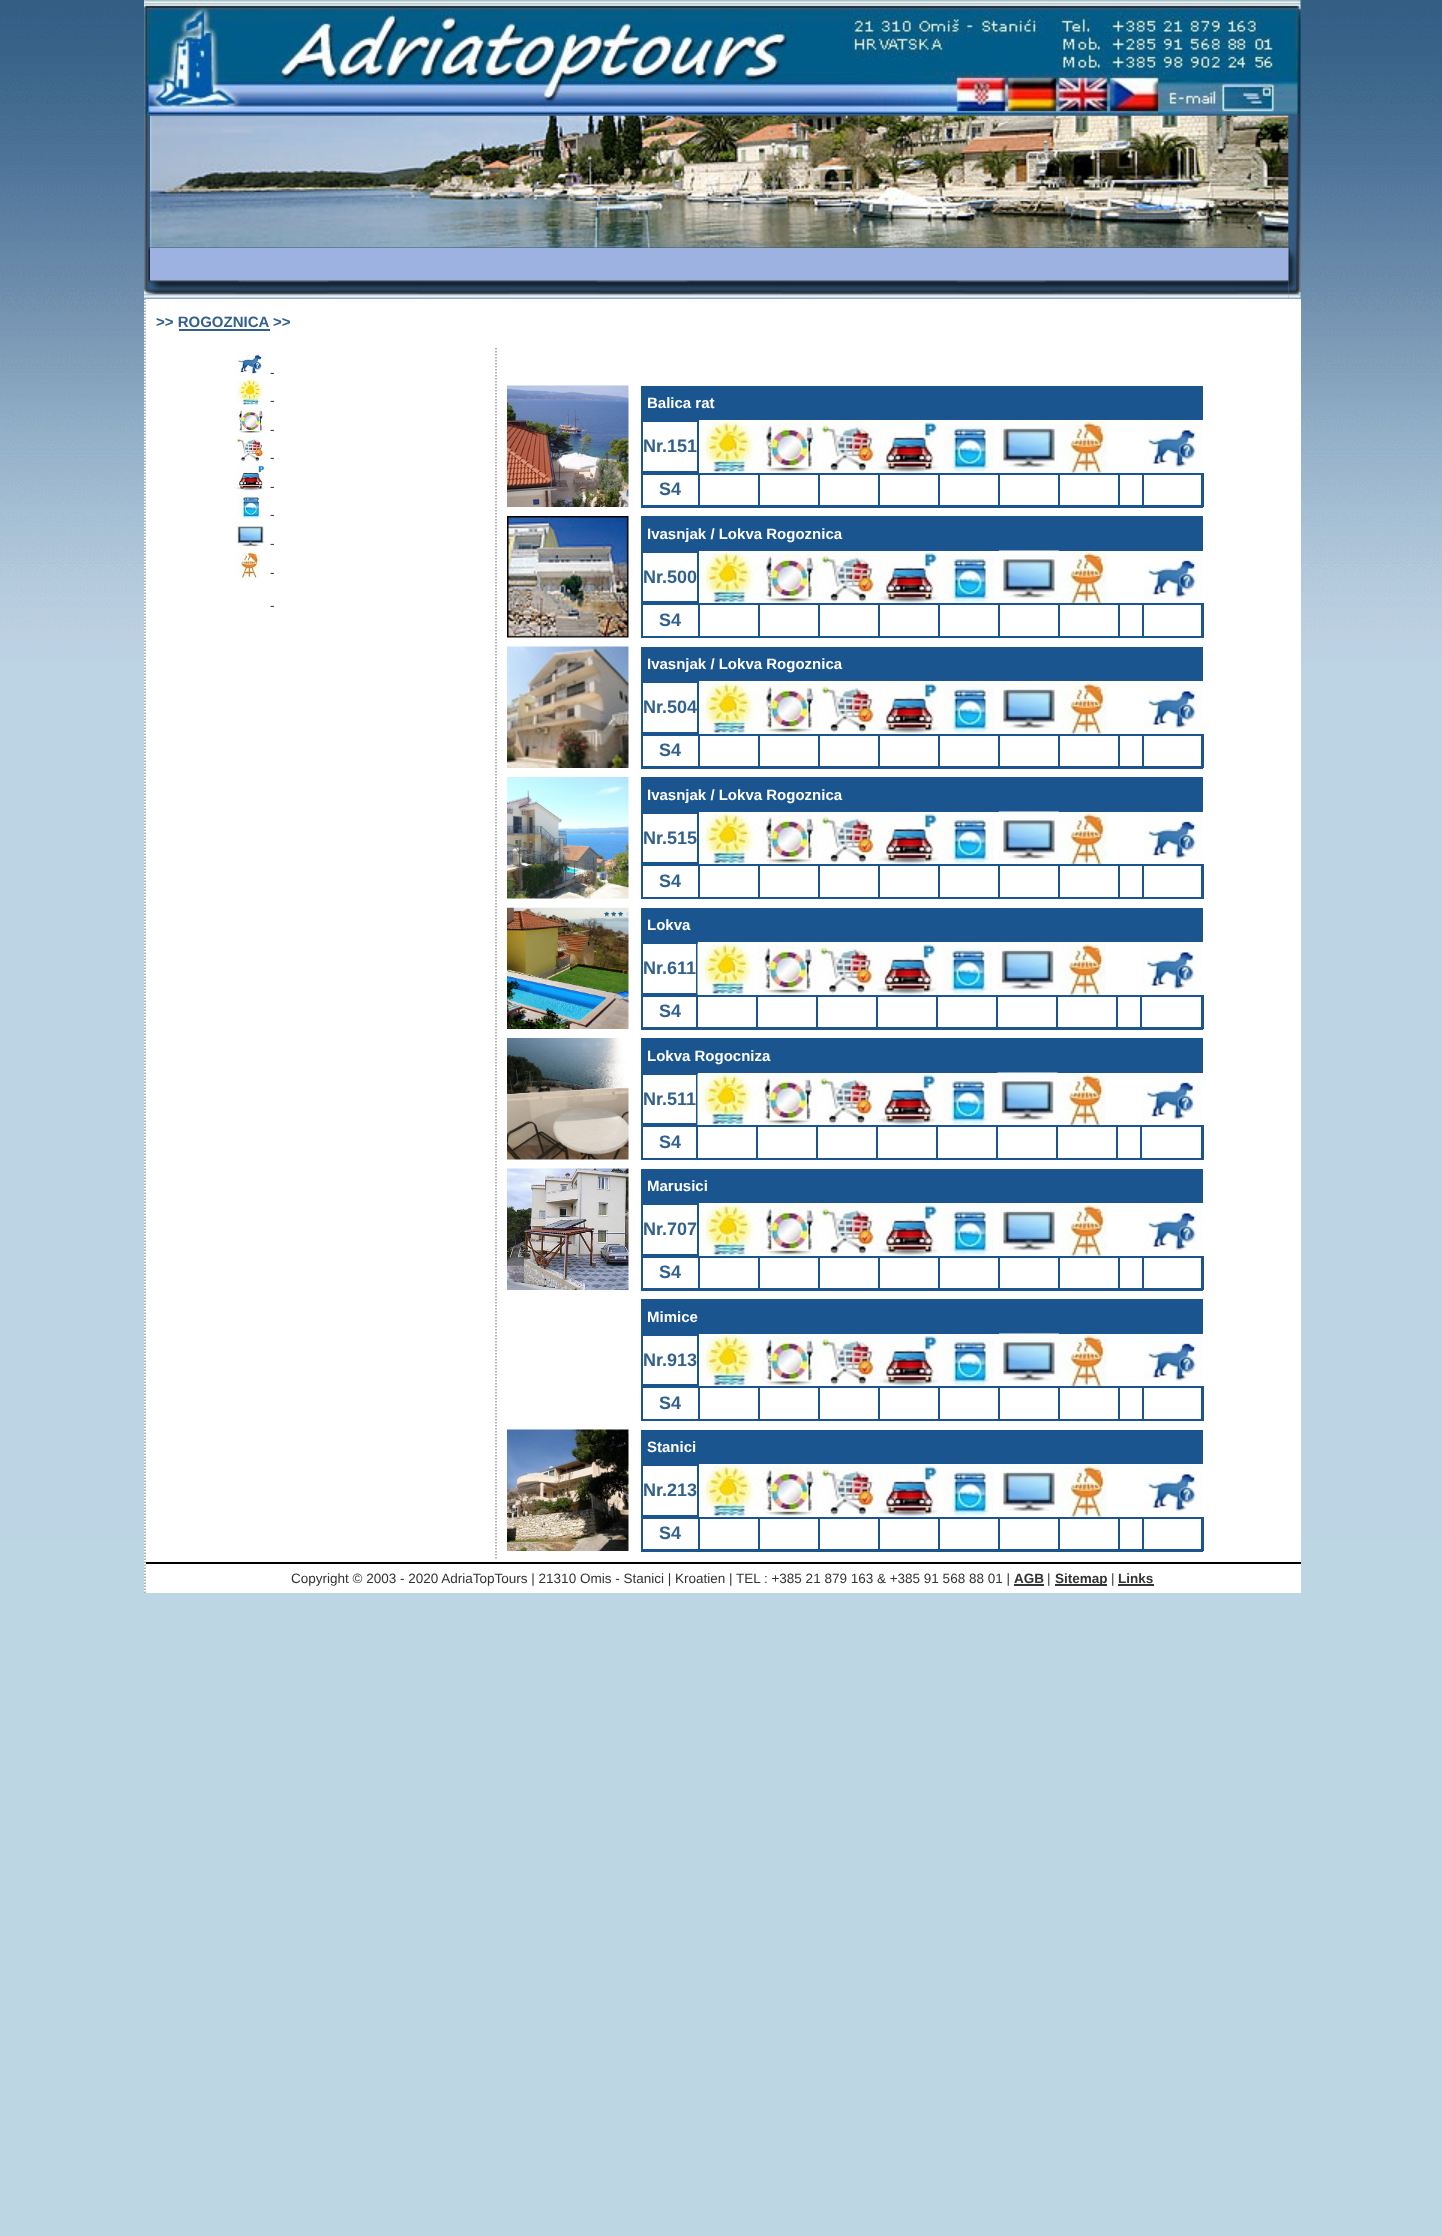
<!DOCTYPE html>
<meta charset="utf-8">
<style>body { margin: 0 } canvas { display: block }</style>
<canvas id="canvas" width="1442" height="2236"></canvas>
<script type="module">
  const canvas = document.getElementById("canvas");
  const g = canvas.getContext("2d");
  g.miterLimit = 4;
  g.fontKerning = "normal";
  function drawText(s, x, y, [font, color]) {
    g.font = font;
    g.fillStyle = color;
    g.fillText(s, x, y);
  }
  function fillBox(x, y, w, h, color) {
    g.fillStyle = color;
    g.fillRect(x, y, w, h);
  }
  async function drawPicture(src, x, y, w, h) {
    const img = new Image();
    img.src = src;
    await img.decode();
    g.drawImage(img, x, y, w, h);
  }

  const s1 = ["bold 15px Liberation Sans", "#31618C"];
  const s2 = ["13.5px Liberation Sans", "#333333"];
  const s3 = ["bold 15px Liberation Sans", "#FFFFFF"];
  const s4 = ["bold 18px Liberation Sans", "#31618C"];
  const s5 = ["bold 13.5px Liberation Sans", "#333333"];

  fillBox(0, 0, 1442, 2236, "#FFFFFF");
  await drawPicture("pic1.png", 0, 0, 1442, 2236);
  await drawPicture("pic2.png", 144, 0, 1157, 114);
  fillBox(144, 299, 1157, 1294, "#FFFFFF");
  g.beginPath();
  g.moveTo(145, 298.5);
  g.lineTo(145, 1593);
  g.strokeStyle = "#999999";
  g.lineWidth = 1.5;
  g.setLineDash([1.5, 1.5]);
  g.stroke();
  await drawPicture("pic3.png", 144, 114, 6, 185);
  fillBox(150, 114, 1139, 134, "#335D85");
  fillBox(150, 248, 1139, 33, "#9DB2E1");
  await drawPicture("pic5.png", 1288, 114, 13, 185);
  await drawPicture("pic4.png", 150, 115, 1139, 133);
  await drawPicture("pic6.png", 150, 280, 1139, 19);
  drawText(">> ROGOZNICA >>", 156, 327, s1);
  fillBox(179, 329, 91, 2, "#31618C");
  await drawPicture("pic7.png", 235, 351, 31, 24);
  drawText("-", 270, 377, s2);
  await drawPicture("pic8.png", 235, 379, 30, 26);
  drawText("-", 270, 405, s2);
  await drawPicture("pic9.png", 235, 408, 30, 26);
  drawText("-", 270, 434, s2);
  await drawPicture("pic10.png", 236, 436, 29, 26);
  drawText("-", 270, 462, s2);
  await drawPicture("pic11.png", 235, 465, 31, 26);
  drawText("-", 270, 491, s2);
  await drawPicture("pic12.png", 236, 494, 27, 25);
  drawText("-", 270, 519, s2);
  await drawPicture("pic13.png", 235, 522, 31, 25);
  drawText("-", 270, 548, s2);
  await drawPicture("pic14.png", 235, 552, 25, 26);
  drawText("-", 270, 577, s2);
  drawText("-", 270, 610, s2);
  g.beginPath();
  g.moveTo(496, 348);
  g.lineTo(496, 1558.5);
  g.stroke();
  await drawPicture("pic15.png", 507, 385, 122, 122);
  fillBox(641, 386, 562, 34, "#1A5590");
  drawText("Balica rat", 647, 408, s3);
  g.strokeStyle = "#1A5590";
  g.lineWidth = 2;
  g.setLineDash([]);
  g.strokeRect(642, 421, 56, 51);
  drawText("Nr.151", 643, 452, s4);
  await drawPicture("pic16.png", 699, 421, 60, 52);
  await drawPicture("pic17.png", 759, 421, 60, 52);
  await drawPicture("pic18.png", 819, 421, 60, 51);
  await drawPicture("pic19.png", 879, 421, 60, 52);
  await drawPicture("pic20.png", 939, 421, 55, 52);
  await drawPicture("pic21.png", 999, 420, 60, 48);
  await drawPicture("pic22.png", 1059, 421, 49, 52);
  await drawPicture("pic23.png", 1143, 421, 60, 48);
  g.strokeRect(642, 474, 560, 32);
  fillBox(698, 473, 2, 34, "#1A5590");
  fillBox(641, 507, 562, 1, "#1A5590");
  drawText("S4", 659, 495, s4);
  fillBox(758, 473, 2, 34, "#1A5590");
  fillBox(818, 473, 2, 34, "#1A5590");
  fillBox(878, 473, 2, 34, "#1A5590");
  fillBox(938, 473, 2, 34, "#1A5590");
  fillBox(998, 473, 2, 34, "#1A5590");
  fillBox(1058, 473, 2, 34, "#1A5590");
  fillBox(1118, 473, 2, 34, "#1A5590");
  fillBox(1142, 473, 2, 34, "#1A5590");
  fillBox(1203, 473, 1, 34, "#1A5590");
  await drawPicture("pic24.png", 507, 516, 122, 122);
  fillBox(641, 516, 562, 35, "#1A5590");
  drawText("Ivasnjak / Lokva Rogoznica", 647, 539, s3);
  g.strokeRect(642, 552, 56, 50);
  drawText("Nr.500", 643, 583, s4);
  await drawPicture("pic25.png", 699, 552, 60, 51);
  await drawPicture("pic26.png", 759, 552, 60, 51);
  await drawPicture("pic27.png", 819, 552, 60, 51);
  await drawPicture("pic28.png", 879, 552, 60, 51);
  await drawPicture("pic29.png", 939, 552, 55, 51);
  await drawPicture("pic30.png", 999, 550, 60, 49);
  await drawPicture("pic31.png", 1059, 552, 49, 51);
  await drawPicture("pic32.png", 1143, 552, 60, 48);
  g.strokeRect(642, 604, 560, 33);
  fillBox(698, 603, 2, 35, "#1A5590");
  drawText("S4", 659, 626, s4);
  fillBox(758, 603, 2, 35, "#1A5590");
  fillBox(818, 603, 2, 35, "#1A5590");
  fillBox(878, 603, 2, 35, "#1A5590");
  fillBox(938, 603, 2, 35, "#1A5590");
  fillBox(998, 603, 2, 35, "#1A5590");
  fillBox(1058, 603, 2, 35, "#1A5590");
  fillBox(1118, 603, 2, 35, "#1A5590");
  fillBox(1142, 603, 2, 35, "#1A5590");
  fillBox(1203, 603, 1, 35, "#1A5590");
  await drawPicture("pic33.png", 507, 646, 122, 122);
  fillBox(641, 647, 562, 34, "#1A5590");
  drawText("Ivasnjak / Lokva Rogoznica", 647, 669, s3);
  g.strokeRect(642, 682, 56, 51);
  drawText("Nr.504", 643, 713, s4);
  await drawPicture("pic16.png", 699, 682, 60, 52);
  await drawPicture("pic17.png", 759, 682, 60, 52);
  await drawPicture("pic18.png", 819, 682, 60, 51);
  await drawPicture("pic19.png", 879, 682, 60, 52);
  await drawPicture("pic20.png", 939, 682, 55, 52);
  await drawPicture("pic21.png", 999, 681, 60, 48);
  await drawPicture("pic22.png", 1059, 682, 49, 52);
  await drawPicture("pic23.png", 1143, 682, 60, 48);
  g.strokeRect(642, 735, 560, 32);
  fillBox(698, 734, 2, 34, "#1A5590");
  fillBox(641, 768, 562, 1, "#1A5590");
  drawText("S4", 659, 756, s4);
  fillBox(758, 734, 2, 34, "#1A5590");
  fillBox(818, 734, 2, 34, "#1A5590");
  fillBox(878, 734, 2, 34, "#1A5590");
  fillBox(938, 734, 2, 34, "#1A5590");
  fillBox(998, 734, 2, 34, "#1A5590");
  fillBox(1058, 734, 2, 34, "#1A5590");
  fillBox(1118, 734, 2, 34, "#1A5590");
  fillBox(1142, 734, 2, 34, "#1A5590");
  fillBox(1203, 734, 1, 34, "#1A5590");
  await drawPicture("pic34.png", 507, 777, 122, 122);
  fillBox(641, 777, 562, 35, "#1A5590");
  drawText("Ivasnjak / Lokva Rogoznica", 647, 800, s3);
  g.strokeRect(642, 813, 56, 50);
  drawText("Nr.515", 643, 844, s4);
  await drawPicture("pic25.png", 699, 813, 60, 51);
  await drawPicture("pic26.png", 759, 813, 60, 51);
  await drawPicture("pic27.png", 819, 813, 60, 51);
  await drawPicture("pic28.png", 879, 813, 60, 51);
  await drawPicture("pic29.png", 939, 813, 55, 51);
  await drawPicture("pic30.png", 999, 811, 60, 49);
  await drawPicture("pic31.png", 1059, 813, 49, 51);
  await drawPicture("pic32.png", 1143, 813, 60, 48);
  g.strokeRect(642, 865, 560, 33);
  fillBox(698, 864, 2, 35, "#1A5590");
  drawText("S4", 659, 887, s4);
  fillBox(758, 864, 2, 35, "#1A5590");
  fillBox(818, 864, 2, 35, "#1A5590");
  fillBox(878, 864, 2, 35, "#1A5590");
  fillBox(938, 864, 2, 35, "#1A5590");
  fillBox(998, 864, 2, 35, "#1A5590");
  fillBox(1058, 864, 2, 35, "#1A5590");
  fillBox(1118, 864, 2, 35, "#1A5590");
  fillBox(1142, 864, 2, 35, "#1A5590");
  fillBox(1203, 864, 1, 35, "#1A5590");
  await drawPicture("pic35.png", 507, 907, 122, 122);
  fillBox(641, 908, 562, 34, "#1A5590");
  drawText("Lokva", 647, 930, s3);
  g.strokeRect(642, 943, 55, 51);
  drawText("Nr.611", 643, 974, s4);
  await drawPicture("pic36.png", 697, 943, 60, 52);
  await drawPicture("pic37.png", 757, 943, 61, 52);
  await drawPicture("pic38.png", 818, 943, 60, 51);
  await drawPicture("pic39.png", 877, 943, 61, 52);
  await drawPicture("pic40.png", 938, 943, 55, 52);
  await drawPicture("pic41.png", 997, 942, 61, 48);
  await drawPicture("pic42.png", 1057, 943, 49, 52);
  await drawPicture("pic43.png", 1141, 943, 61, 48);
  g.strokeRect(642, 996, 560, 32);
  fillBox(696, 995, 2, 34, "#1A5590");
  fillBox(641, 1029, 562, 1, "#1A5590");
  drawText("S4", 659, 1017, s4);
  fillBox(756, 995, 2, 34, "#1A5590");
  fillBox(816, 995, 2, 34, "#1A5590");
  fillBox(876, 995, 2, 34, "#1A5590");
  fillBox(936, 995, 2, 34, "#1A5590");
  fillBox(996, 995, 2, 34, "#1A5590");
  fillBox(1056, 995, 2, 34, "#1A5590");
  fillBox(1116, 995, 2, 34, "#1A5590");
  fillBox(1140, 995, 2, 34, "#1A5590");
  fillBox(1203, 995, 1, 34, "#1A5590");
  await drawPicture("pic44.png", 507, 1038, 122, 122);
  fillBox(641, 1038, 562, 35, "#1A5590");
  drawText("Lokva Rogocniza", 647, 1061, s3);
  g.strokeRect(642, 1074, 55, 50);
  drawText("Nr.511", 643, 1105, s4);
  await drawPicture("pic45.png", 697, 1074, 60, 51);
  await drawPicture("pic46.png", 757, 1074, 61, 51);
  await drawPicture("pic47.png", 818, 1074, 60, 51);
  await drawPicture("pic48.png", 877, 1074, 61, 51);
  await drawPicture("pic49.png", 938, 1074, 55, 51);
  await drawPicture("pic50.png", 997, 1072, 61, 49);
  await drawPicture("pic51.png", 1057, 1074, 49, 51);
  await drawPicture("pic52.png", 1141, 1074, 61, 48);
  g.strokeRect(642, 1126, 560, 33);
  fillBox(696, 1125, 2, 35, "#1A5590");
  drawText("S4", 659, 1148, s4);
  fillBox(756, 1125, 2, 35, "#1A5590");
  fillBox(816, 1125, 2, 35, "#1A5590");
  fillBox(876, 1125, 2, 35, "#1A5590");
  fillBox(936, 1125, 2, 35, "#1A5590");
  fillBox(996, 1125, 2, 35, "#1A5590");
  fillBox(1056, 1125, 2, 35, "#1A5590");
  fillBox(1116, 1125, 2, 35, "#1A5590");
  fillBox(1140, 1125, 2, 35, "#1A5590");
  fillBox(1203, 1125, 1, 35, "#1A5590");
  await drawPicture("pic53.png", 507, 1168, 122, 122);
  fillBox(641, 1169, 562, 34, "#1A5590");
  drawText("Marusici", 647, 1191, s3);
  g.strokeRect(642, 1204, 56, 51);
  drawText("Nr.707", 643, 1235, s4);
  await drawPicture("pic16.png", 699, 1204, 60, 52);
  await drawPicture("pic17.png", 759, 1204, 60, 52);
  await drawPicture("pic18.png", 819, 1204, 60, 51);
  await drawPicture("pic19.png", 879, 1204, 60, 52);
  await drawPicture("pic20.png", 939, 1204, 55, 52);
  await drawPicture("pic21.png", 999, 1203, 60, 48);
  await drawPicture("pic22.png", 1059, 1204, 49, 52);
  await drawPicture("pic23.png", 1143, 1204, 60, 48);
  g.strokeRect(642, 1257, 560, 32);
  fillBox(698, 1256, 2, 34, "#1A5590");
  fillBox(641, 1290, 562, 1, "#1A5590");
  drawText("S4", 659, 1278, s4);
  fillBox(758, 1256, 2, 34, "#1A5590");
  fillBox(818, 1256, 2, 34, "#1A5590");
  fillBox(878, 1256, 2, 34, "#1A5590");
  fillBox(938, 1256, 2, 34, "#1A5590");
  fillBox(998, 1256, 2, 34, "#1A5590");
  fillBox(1058, 1256, 2, 34, "#1A5590");
  fillBox(1118, 1256, 2, 34, "#1A5590");
  fillBox(1142, 1256, 2, 34, "#1A5590");
  fillBox(1203, 1256, 1, 34, "#1A5590");
  fillBox(641, 1299, 562, 35, "#1A5590");
  drawText("Mimice", 647, 1322, s3);
  g.strokeRect(642, 1335, 56, 50);
  drawText("Nr.913", 643, 1366, s4);
  await drawPicture("pic25.png", 699, 1335, 60, 51);
  await drawPicture("pic26.png", 759, 1335, 60, 51);
  await drawPicture("pic27.png", 819, 1335, 60, 51);
  await drawPicture("pic28.png", 879, 1335, 60, 51);
  await drawPicture("pic29.png", 939, 1335, 55, 51);
  await drawPicture("pic30.png", 999, 1333, 60, 49);
  await drawPicture("pic31.png", 1059, 1335, 49, 51);
  await drawPicture("pic32.png", 1143, 1335, 60, 48);
  g.strokeRect(642, 1387, 560, 33);
  fillBox(698, 1386, 2, 35, "#1A5590");
  drawText("S4", 659, 1409, s4);
  fillBox(758, 1386, 2, 35, "#1A5590");
  fillBox(818, 1386, 2, 35, "#1A5590");
  fillBox(878, 1386, 2, 35, "#1A5590");
  fillBox(938, 1386, 2, 35, "#1A5590");
  fillBox(998, 1386, 2, 35, "#1A5590");
  fillBox(1058, 1386, 2, 35, "#1A5590");
  fillBox(1118, 1386, 2, 35, "#1A5590");
  fillBox(1142, 1386, 2, 35, "#1A5590");
  fillBox(1203, 1386, 1, 35, "#1A5590");
  await drawPicture("pic54.png", 507, 1429, 122, 122);
  fillBox(641, 1430, 562, 34, "#1A5590");
  drawText("Stanici", 647, 1452, s3);
  g.strokeRect(642, 1465, 56, 51);
  drawText("Nr.213", 643, 1496, s4);
  await drawPicture("pic16.png", 699, 1465, 60, 52);
  await drawPicture("pic17.png", 759, 1465, 60, 52);
  await drawPicture("pic18.png", 819, 1465, 60, 51);
  await drawPicture("pic19.png", 879, 1465, 60, 52);
  await drawPicture("pic20.png", 939, 1465, 55, 52);
  await drawPicture("pic21.png", 999, 1464, 60, 48);
  await drawPicture("pic22.png", 1059, 1465, 49, 52);
  await drawPicture("pic23.png", 1143, 1465, 60, 48);
  g.strokeRect(642, 1518, 560, 32);
  fillBox(698, 1517, 2, 34, "#1A5590");
  fillBox(641, 1551, 562, 1, "#1A5590");
  drawText("S4", 659, 1539, s4);
  fillBox(758, 1517, 2, 34, "#1A5590");
  fillBox(818, 1517, 2, 34, "#1A5590");
  fillBox(878, 1517, 2, 34, "#1A5590");
  fillBox(938, 1517, 2, 34, "#1A5590");
  fillBox(998, 1517, 2, 34, "#1A5590");
  fillBox(1058, 1517, 2, 34, "#1A5590");
  fillBox(1118, 1517, 2, 34, "#1A5590");
  fillBox(1142, 1517, 2, 34, "#1A5590");
  fillBox(1203, 1517, 1, 34, "#1A5590");
  fillBox(146, 1562, 1155, 2, "#000000");
  drawText("Copyright © 2003 - 2020 AdriaTopTours | 21310 Omis - Stanici | Kroatien | TEL : +385 21 879 163 & +385 91 568 88 01 |", 291, 1583, s2);
  drawText("AGB", 1014, 1583, s5);
  fillBox(1014, 1584, 30, 2, "#333333");
  drawText("|", 1047, 1583, s2);
  fillBox(1055, 1584, 52, 2, "#333333");
  drawText("Sitemap", 1055, 1583, s5);
  drawText("|", 1111, 1583, s2);
  drawText("Links", 1118, 1583, s5);
  fillBox(1118, 1584, 36, 2, "#333333");
</script>
